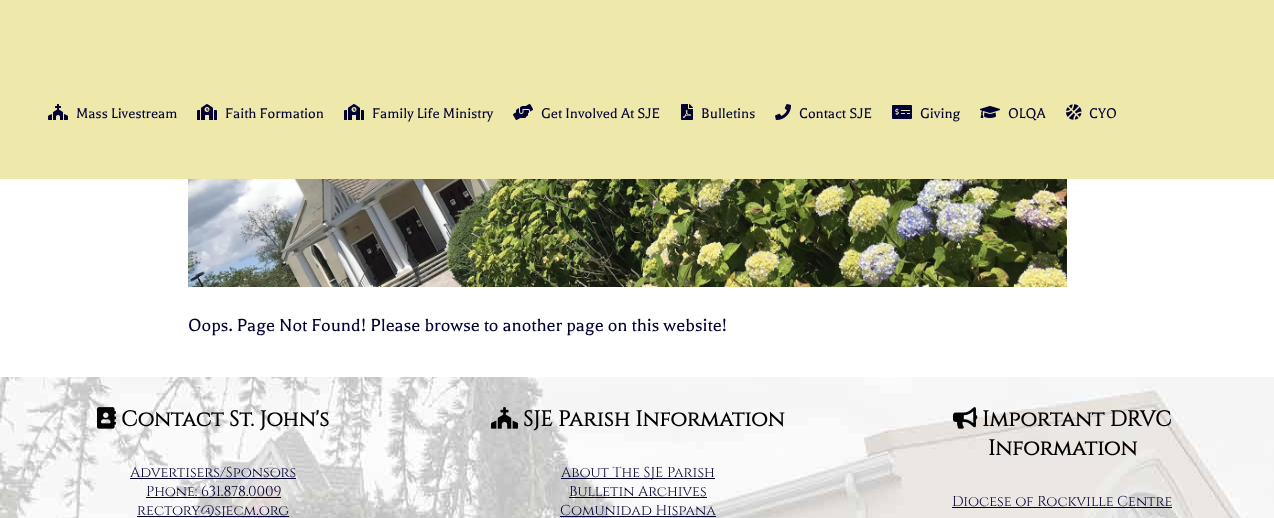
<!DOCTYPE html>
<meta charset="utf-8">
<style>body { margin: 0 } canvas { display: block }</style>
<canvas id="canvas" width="1274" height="518"></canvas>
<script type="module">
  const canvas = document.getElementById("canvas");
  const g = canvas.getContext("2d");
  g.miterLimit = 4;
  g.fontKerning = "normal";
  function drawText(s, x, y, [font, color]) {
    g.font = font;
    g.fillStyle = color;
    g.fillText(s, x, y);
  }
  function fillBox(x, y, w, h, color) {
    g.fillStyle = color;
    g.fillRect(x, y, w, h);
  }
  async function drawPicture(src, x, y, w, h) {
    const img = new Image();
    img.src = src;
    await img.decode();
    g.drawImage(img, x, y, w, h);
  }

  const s1 = ["16px Balthazar", "#000033"];
  const s2 = ["20px Balthazar", "#000033"];
  const s3 = ["bold 21.6px Cinzel", "#000000"];
  const s4 = ["14.4px Cinzel", "#000033"];

  fillBox(0, 0, 1274, 518, "#FFFFFF");
  fillBox(0, 0, 1274, 179, "#EEE8AA");
  await drawPicture("pic1.png", 48, 104, 20, 16);
  drawText("Mass Livestream", 76, 118, s1);
  await drawPicture("pic2.png", 197, 104, 20, 16);
  drawText("Faith Formation", 225, 118, s1);
  await drawPicture("pic2.png", 344, 104, 20, 16);
  drawText("Family Life Ministry", 372, 118, s1);
  await drawPicture("pic3.png", 513, 104, 20, 16);
  drawText("Get Involved At SJE", 541, 118, s1);
  await drawPicture("pic4.png", 681, 104, 12, 16);
  drawText("Bulletins", 701, 118, s1);
  await drawPicture("pic5.png", 775, 104, 16, 16);
  drawText("Contact SJE", 799, 118, s1);
  await drawPicture("pic6.png", 892, 105, 20, 14);
  drawText("Giving", 920, 118, s1);
  await drawPicture("pic7.png", 980, 106, 20, 12);
  drawText("OLQA", 1008, 118, s1);
  await drawPicture("pic8.png", 1066, 104, 16, 16);
  drawText("CYO", 1089, 118, s1);
  await drawPicture("pic9.png", 188, 179, 879, 108);
  drawText("Oops. Page Not Found! Please browse to another page on this website!", 188, 331, s2);
  await drawPicture("pic10.png", 0, 377, 1274, 141);
  await drawPicture("pic11.png", 97, 407, 19, 22);
  drawText("Contact St. John's", 121, 426, s3);
  drawText("Advertisers/Sponsors", 130, 477, s4);
  fillBox(130, 478, 166, 1, "#000033");
  drawText("Phone: 631.878.0009", 146, 496, s4);
  fillBox(146, 497, 135, 1, "#000033");
  fillBox(137, 516, 152, 1, "#000033");
  drawText("rectory@sjecm.org", 137, 515, s4);
  await drawPicture("pic12.png", 491, 407, 27, 22);
  drawText("SJE Parish Information", 523, 426, s3);
  fillBox(561, 478, 154, 1, "#000033");
  drawText("About The SJE Parish", 561, 477, s4);
  drawText("Bulletin Archives", 569, 496, s4);
  fillBox(569, 497, 138, 1, "#000033");
  drawText("Comunidad Hispana", 560, 515, s4);
  fillBox(560, 516, 156, 1, "#000033");
  await drawPicture("pic13.png", 953, 407, 25, 22);
  drawText("Important DRVC", 982, 426, s3);
  drawText("Information", 988, 455, s3);
  drawText("Diocese of Rockville Centre", 952, 506, s4);
  fillBox(952, 507, 220, 1, "#000033");
</script>
